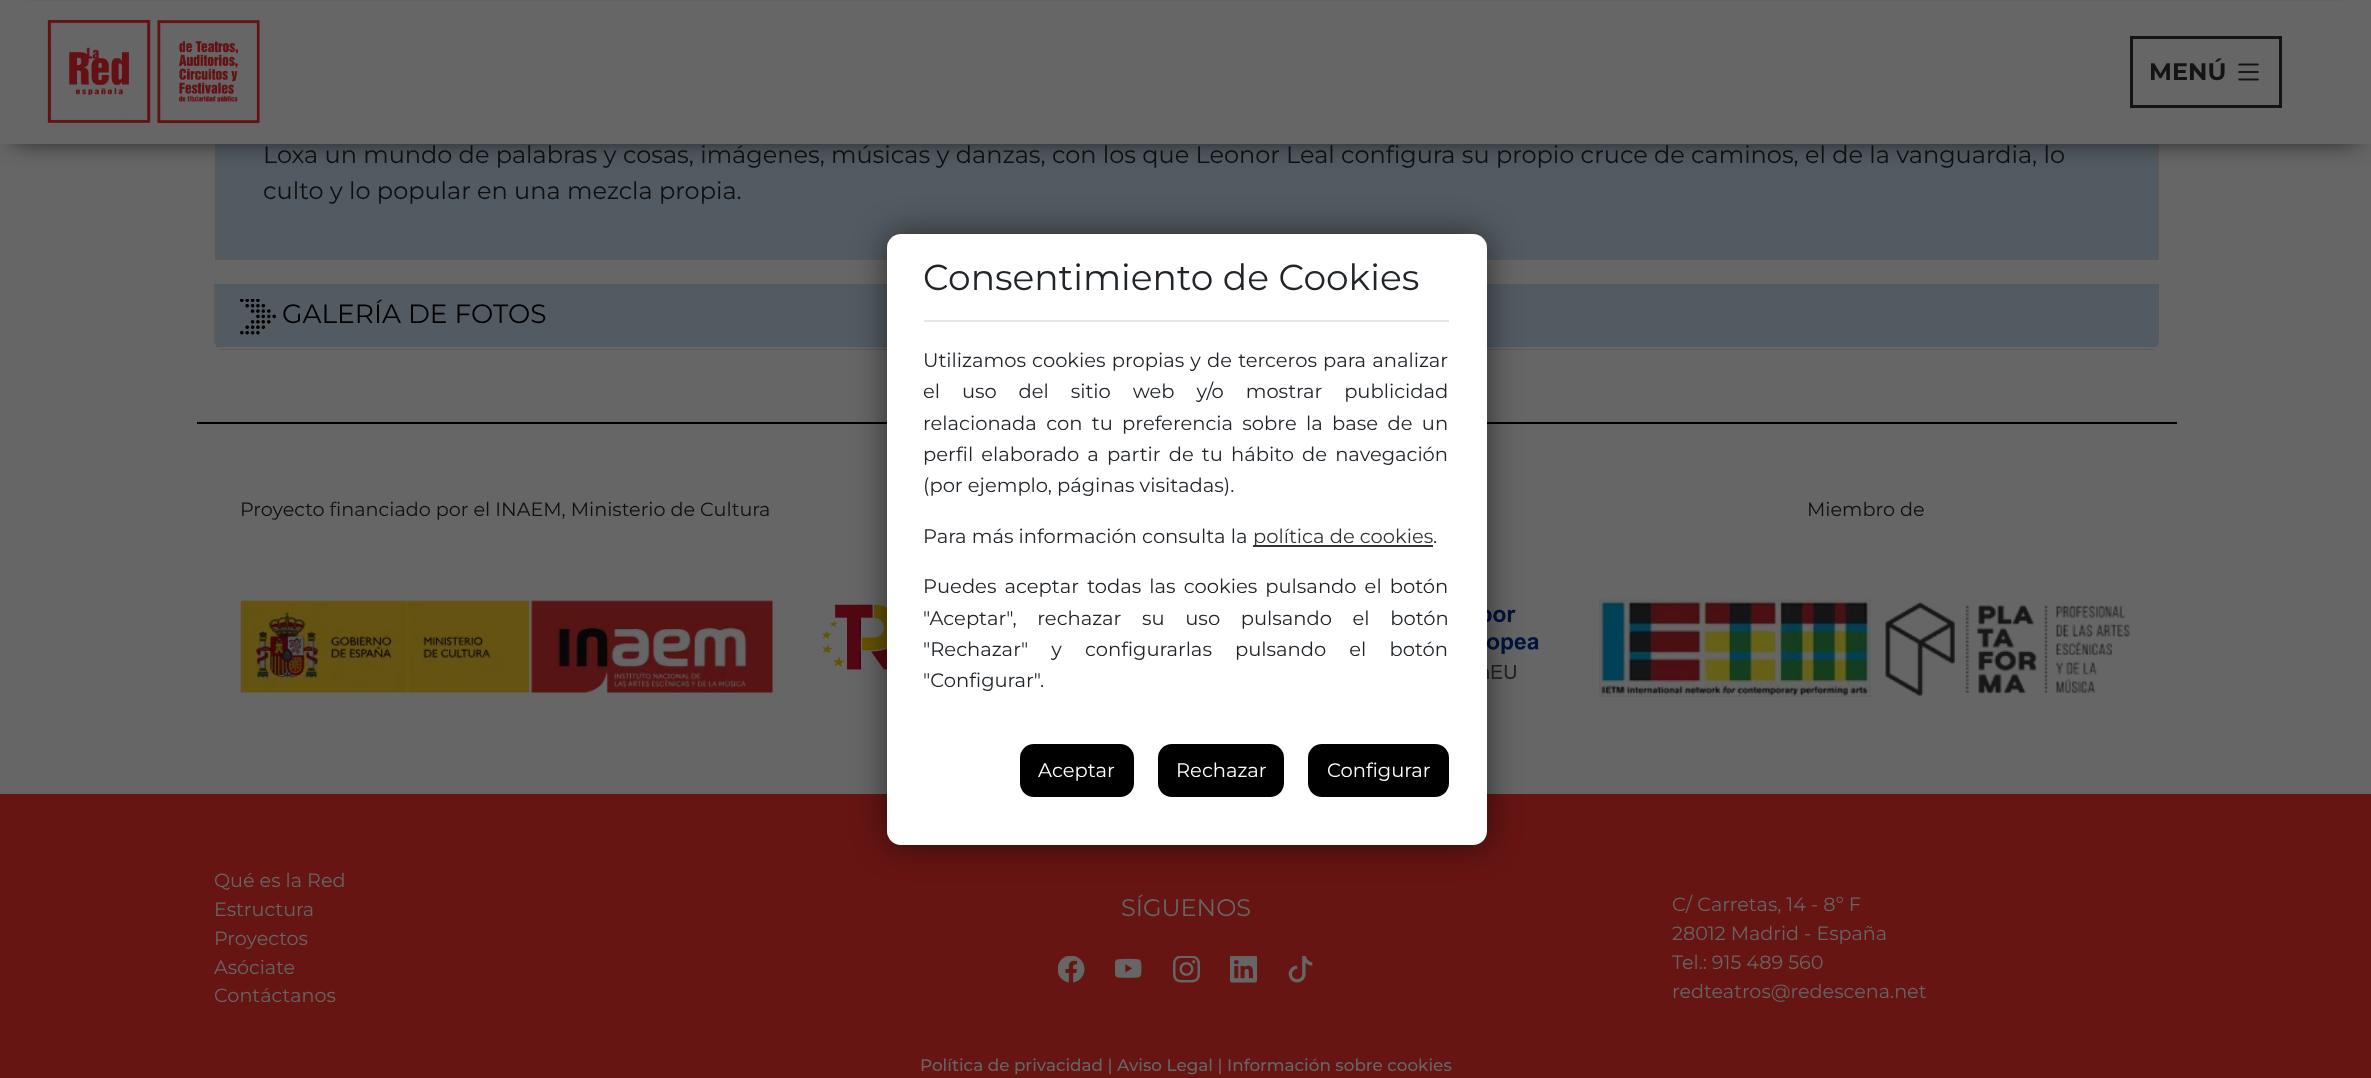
<!DOCTYPE html>
<meta charset="utf-8">
<style>body { margin: 0 } canvas { display: block }</style>
<canvas id="canvas" width="2371" height="1078"></canvas>
<script type="module">
  const canvas = document.getElementById("canvas");
  const g = canvas.getContext("2d");
  g.miterLimit = 4;
  g.fontKerning = "normal";
  function drawText(s, x, y, [font, color]) {
    g.font = font;
    g.fillStyle = color;
    g.fillText(s, x, y);
  }
  function fillBox(x, y, w, h, color) {
    g.fillStyle = color;
    g.fillRect(x, y, w, h);
  }
  function fillRounded(x, y, w, h, r, color) {
    g.fillStyle = color;
    g.beginPath();
    g.roundRect(x, y, w, h, r);
    g.fill();
  }
  async function drawPicture(src, x, y, w, h) {
    const img = new Image();
    img.src = src;
    await img.decode();
    g.drawImage(img, x, y, w, h);
  }

  const s1 = ["100 24px 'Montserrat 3'", "#141414"];
  const s2 = ["100 24px Montserrat", "#0D0F10"];
  const s3 = ["100 26.5px Montserrat", "#000000"];
  const s4 = ["100 36px Montserrat", "#212529"];
  const s5 = ["100 19.5px Montserrat", "#212529"];
  const s6 = ["100 19.5px Montserrat", "#333333"];
  const s7 = ["100 19.5px Montserrat", "#FFFFFF"];
  const s8 = ["100 19.2px Montserrat", "#0D0F10"];
  const s9 = ["100 19.2px Montserrat", "#666666"];
  const s10 = ["100 24px Montserrat", "#666666"];
  const s11 = ["100 16.8px 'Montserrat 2'", "#666666"];

  fillBox(0, 0, 2371, 1078, "#666666");
  fillBox(217, 144, 1940, 114, "#525B62");
  fillBox(2157, 144, 2, 116, "#595A5C");
  fillBox(215, 258, 1944, 2, "#595A5C");
  fillBox(215, 144, 2, 116, "#595A5C");
  g.fillStyle = "#141414";
  g.filter = "blur(12px)";
  g.beginPath();
  g.rect(14, 23, 2344, 117);
  g.fill();
  g.filter = "none";
  fillBox(0, 1, 2371, 143, "#666666");
  await drawPicture("pic1.png", 47, 19, 213, 105);
  g.strokeStyle = "#141414";
  g.lineWidth = 3;
  g.strokeRect(2131.5, 37.5, 149, 69);
  drawText("MENÚ", 2149, 80, s1);
  await drawPicture("pic2.png", 2238, 63, 21, 18);
  drawText("Loxa un mundo de palabras y cosas, imágenes, músicas y danzas, con los que Leonor Leal configura su propio cruce de caminos, el de la vanguardia, lo", 263, 163, s2);
  drawText("culto y lo popular en una mezcla propia.", 263, 199, s2);
  g.fillStyle = "#525B62";
  g.beginPath();
  g.roundRect(215, 284, 1944, 66, [0, 0, 9, 9]);
  g.fill();
  g.fillStyle = "#595A5C";
  g.beginPath();
  g.moveTo(214, 284);
  g.lineTo(2158, 284);
  g.lineTo(2158, 340);
  g.bezierCurveTo(2158, 345, 2154, 350, 2150, 350);
  g.lineTo(224, 350);
  g.bezierCurveTo(219, 350, 214, 345, 214, 340);
  g.closePath();
  g.moveTo(216, 284);
  g.lineTo(2157, 284);
  g.lineTo(2157, 340);
  g.bezierCurveTo(2157, 345, 2154, 348, 2150, 348);
  g.lineTo(224, 348);
  g.bezierCurveTo(219, 348, 216, 345, 216, 340);
  g.closePath();
  g.fill("evenodd");
  fillBox(216, 343, 1941, 4, "#525B62");
  fillBox(216, 347, 1941, 2, "#666666");
  await drawPicture("pic3.png", 240, 299, 36, 36);
  drawText("GALERÍA DE FOTOS", 282, 323, s3);
  fillBox(197, 422, 1980, 2, "#000000");
  await drawPicture("pic7.png", 822, 604, 65, 66);
  await drawPicture("pic8.png", 1487, 609, 52, 71);
  fillBox(0, 794, 2371, 284, "#661513");
  g.fillStyle = "rgba(0, 0, 0, 0.54)";
  g.filter = "blur(16.5px)";
  g.beginPath();
  g.roundRect(887, 234, 600, 611, 14);
  g.fill();
  g.filter = "none";
  fillRounded(887, 234, 600, 611, 14, "#FFFFFF");
  fillBox(924, 320, 525, 2, "#E6E6E6");
  drawText("Consentimiento de Cookies", 923, 290, s4);
  g.wordSpacing = "1px";
  drawText("Utilizamos cookies propias y de terceros para analizar", 923, 367, s5);
  g.wordSpacing = "16.75px";
  drawText("el uso del sitio web y/o mostrar publicidad", 923, 398, s5);
  g.wordSpacing = "4.25px";
  drawText("relacionada con tu preferencia sobre la base de un", 923, 430, s5);
  g.wordSpacing = "3px";
  drawText("perfil elaborado a partir de tu hábito de navegación", 923, 461, s5);
  g.wordSpacing = "0px";
  drawText("(por ejemplo, páginas visitadas).", 923, 492, s5);
  drawText("Para más información consulta la", 923, 543, s5);
  fillBox(1253, 545, 180, 2, "#333333");
  drawText("política de cookies", 1253, 543, s6);
  drawText(".", 1433, 543, s5);
  g.wordSpacing = "3px";
  drawText("Puedes aceptar todas las cookies pulsando el botón", 923, 593, s5);
  g.wordSpacing = "15.5px";
  drawText("\"Aceptar\", rechazar su uso pulsando el botón", 923, 625, s5);
  g.wordSpacing = "18px";
  drawText("\"Rechazar\" y configurarlas pulsando el botón", 923, 656, s5);
  g.wordSpacing = "0px";
  drawText("\"Configurar\".", 923, 687, s5);
  fillRounded(1020, 744, 114, 53, 14, "#000000");
  drawText("Aceptar", 1038, 777, s7);
  fillRounded(1158, 744, 126, 53, 14, "#000000");
  drawText("Rechazar", 1176, 777, s7);
  fillRounded(1308, 744, 141, 53, 14, "#000000");
  drawText("Configurar", 1327, 777, s7);
  drawText("Proyecto financiado por el INAEM, Ministerio de Cultura", 240, 516, s8);
  await drawPicture("pic4.png", 240, 600, 533, 93);
  drawText("Miembro de", 1807, 516, s8);
  await drawPicture("pic5.png", 1599, 599, 272, 98);
  await drawPicture("pic6.png", 1885, 602, 246, 94);
  drawText("Qué es la Red", 214, 887, s9);
  drawText("Estructura", 214, 916, s9);
  drawText("Proyectos", 214, 945, s9);
  drawText("Asóciate", 214, 974, s9);
  drawText("Contáctanos", 214, 1002, s9);
  drawText("SÍGUENOS", 1121, 916, s10);
  await drawPicture("pic9.png", 1058, 956, 27, 27);
  await drawPicture("pic10.png", 1115, 958, 27, 20);
  await drawPicture("pic11.png", 1173, 956, 27, 27);
  await drawPicture("pic12.png", 1230, 956, 27, 27);
  await drawPicture("pic13.png", 1288, 956, 25, 27);
  drawText("C/ Carretas, 14 - 8º F", 1672, 911, s9);
  drawText("28012 Madrid - España", 1672, 940, s9);
  drawText("Tel.: 915 489 560", 1672, 969, s9);
  drawText("redteatros@redescena.net", 1672, 998, s9);
  drawText("Política de privacidad | Aviso Legal | Información sobre cookies", 920, 1071, s11);
</script>
